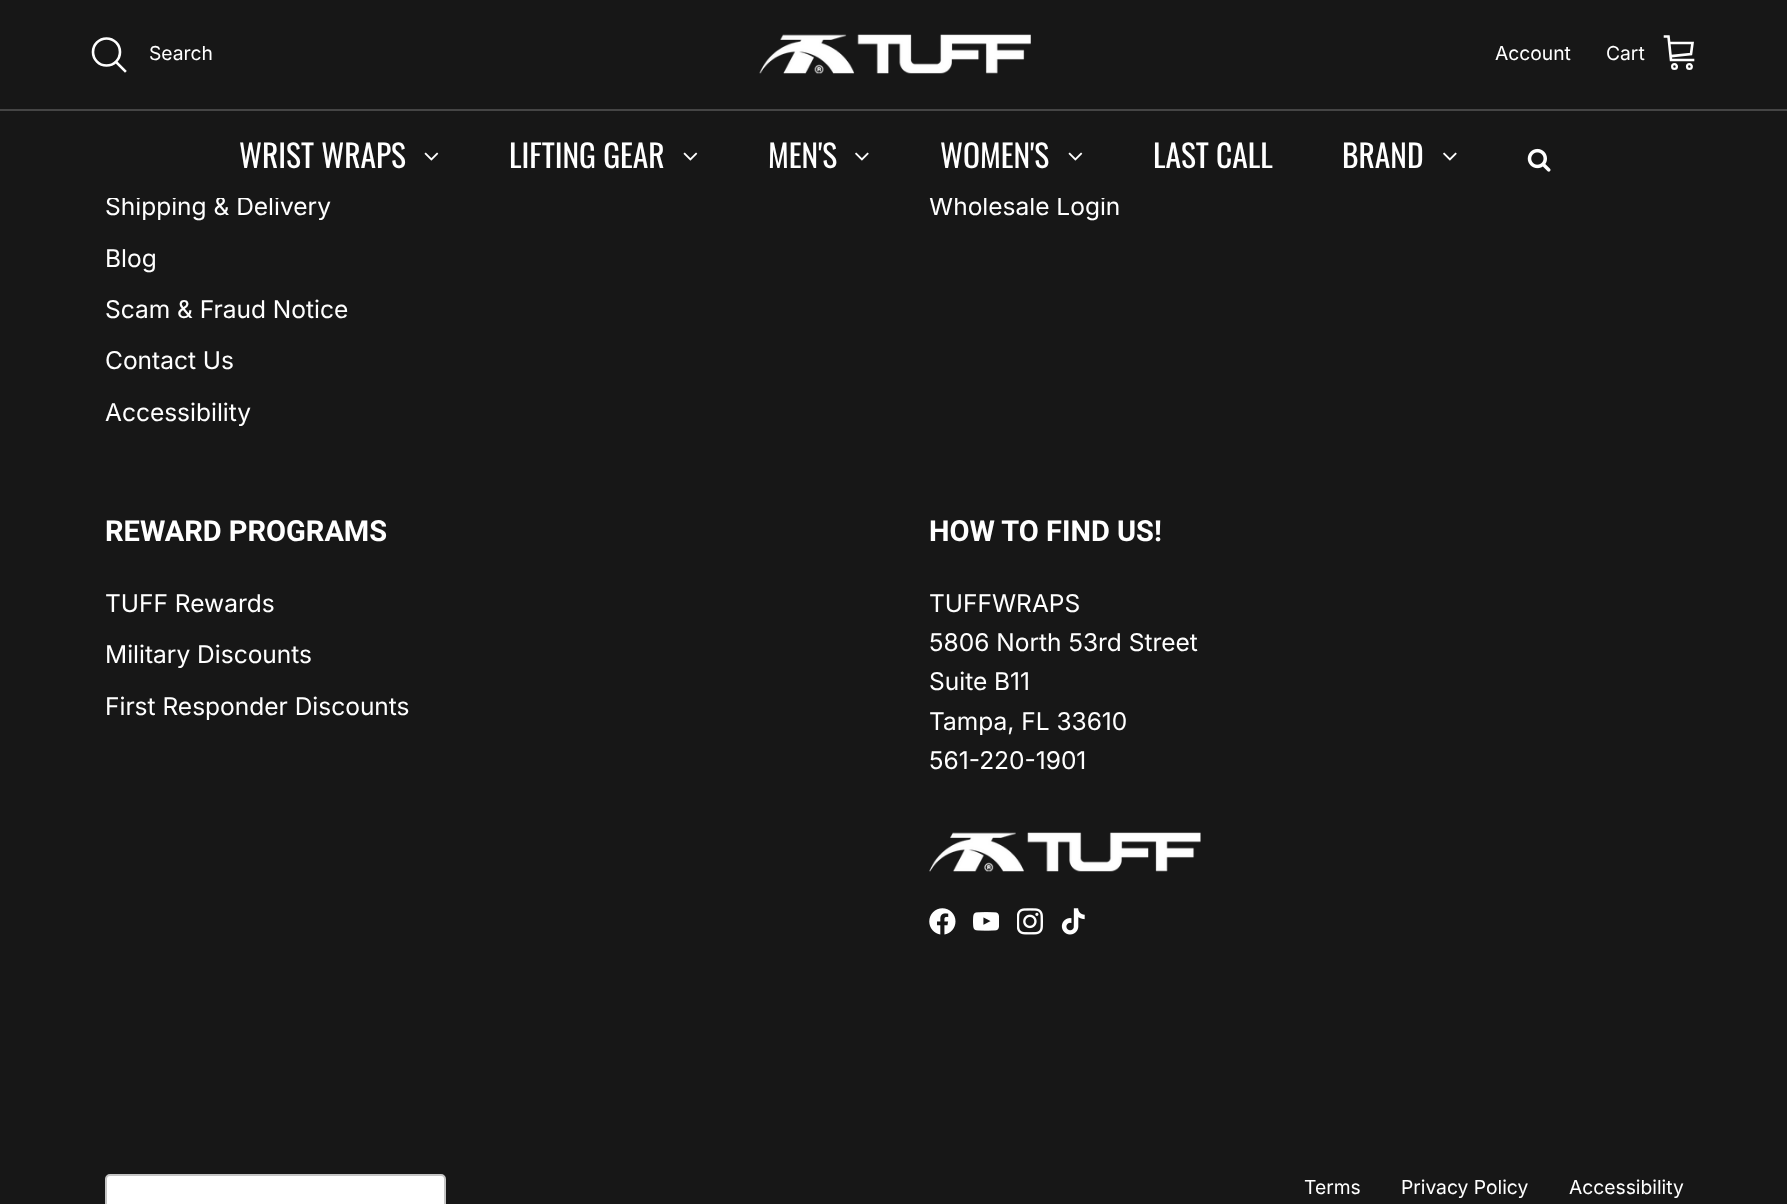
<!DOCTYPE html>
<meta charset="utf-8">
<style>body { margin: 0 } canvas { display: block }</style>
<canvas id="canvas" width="1787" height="1204"></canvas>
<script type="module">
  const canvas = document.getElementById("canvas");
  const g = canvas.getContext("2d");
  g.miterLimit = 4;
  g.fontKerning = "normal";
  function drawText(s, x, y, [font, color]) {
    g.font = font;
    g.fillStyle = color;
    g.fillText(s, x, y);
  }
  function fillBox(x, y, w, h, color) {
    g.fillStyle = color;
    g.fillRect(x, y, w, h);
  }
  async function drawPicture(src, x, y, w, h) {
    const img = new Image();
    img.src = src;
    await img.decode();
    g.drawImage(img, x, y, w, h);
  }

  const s1 = ["19.25px Inter", "#FFFFFF"];
  const s2 = ["24.5px Inter", "#FFFFFF"];
  const s3 = ["31.5px Oswald", "#FFFFFF"];
  const s4 = ["bold 29px Roboto", "#FFFFFF"];

  fillBox(0, 0, 1787, 1204, "#171717");
  fillBox(0, 109, 1787, 2, "#454545");
  g.beginPath();
  g.arc(106.5, 52, 13.5, 0, Math.PI * 2);
  g.strokeStyle = "#FFFFFF";
  g.lineWidth = 2.6;
  g.stroke();
  drawText("Search", 149, 60, s1);
  g.beginPath();
  g.moveTo(117, 63);
  g.lineTo(125, 71);
  g.lineCap = "square";
  g.stroke();
  await drawPicture("pic1.png", 759, 34, 272, 40);
  drawText("Account", 1495, 60, s1);
  drawText("Cart", 1606, 60, s1);
  g.beginPath();
  g.moveTo(1665, 36.5);
  g.lineTo(1668.5, 36.5);
  g.lineTo(1671, 60);
  g.lineTo(1693, 60);
  g.moveTo(1670, 43);
  g.lineTo(1692.5, 43);
  g.lineTo(1691, 54);
  g.lineTo(1672.5, 56);
  g.stroke();
  g.beginPath();
  g.arc(1674.5, 66.5, 2.4, 0, Math.PI * 2);
  g.lineWidth = 2.2;
  g.stroke();
  g.beginPath();
  g.arc(1689.4, 66.5, 2.4, 0, Math.PI * 2);
  g.stroke();
  drawText("Shipping & Delivery", 105, 215, s2);
  drawText("Wholesale Login", 929, 215, s2);
  fillBox(109, 196, 996, 2, "#171717");
  drawText("WRIST WRAPS", 239, 168, s3);
  await drawPicture("pic2.png", 424, 152, 15, 9);
  drawText("LIFTING GEAR", 509, 168, s3);
  await drawPicture("pic2.png", 683, 152, 15, 9);
  drawText("MEN'S", 768, 168, s3);
  await drawPicture("pic3.png", 855, 152, 14, 9);
  drawText("WOMEN'S", 940, 168, s3);
  await drawPicture("pic2.png", 1068, 152, 15, 9);
  drawText("LAST CALL", 1153, 168, s3);
  drawText("BRAND", 1342, 168, s3);
  await drawPicture("pic3.png", 1443, 152, 14, 9);
  await drawPicture("pic4.png", 1527, 148, 24, 24);
  drawText("Blog", 105, 267, s2);
  drawText("Scam & Fraud Notice", 105, 318, s2);
  drawText("Contact Us", 105, 369, s2);
  drawText("Accessibility", 105, 421, s2);
  drawText("REWARD PROGRAMS", 105, 541, s4);
  drawText("TUFF Rewards", 105, 612, s2);
  drawText("Military Discounts", 105, 663, s2);
  drawText("First Responder Discounts", 105, 715, s2);
  drawText("HOW TO FIND US!", 929, 541, s4);
  drawText("TUFFWRAPS", 929, 612, s2);
  drawText("5806 North 53rd Street", 929, 651, s2);
  drawText("Suite B11", 929, 690, s2);
  drawText("Tampa, FL 33610", 929, 730, s2);
  drawText("561-220-1901", 929, 769, s2);
  await drawPicture("pic5.png", 929, 832, 272, 40);
  await drawPicture("pic6.png", 929, 908, 27, 27);
  await drawPicture("pic7.png", 973, 912, 26, 19);
  await drawPicture("pic8.png", 1017, 908, 26, 27);
  await drawPicture("pic9.png", 1061, 908, 24, 27);
  g.beginPath();
  g.roundRect(106, 1175, 339, 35, 4);
  g.fill();
  g.strokeStyle = "#C5C5C5";
  g.lineWidth = 2;
  g.stroke();
  drawText("Terms", 1304, 1194, s1);
  drawText("Privacy Policy", 1401, 1194, s1);
  drawText("Accessibility", 1569, 1194, s1);
</script>
